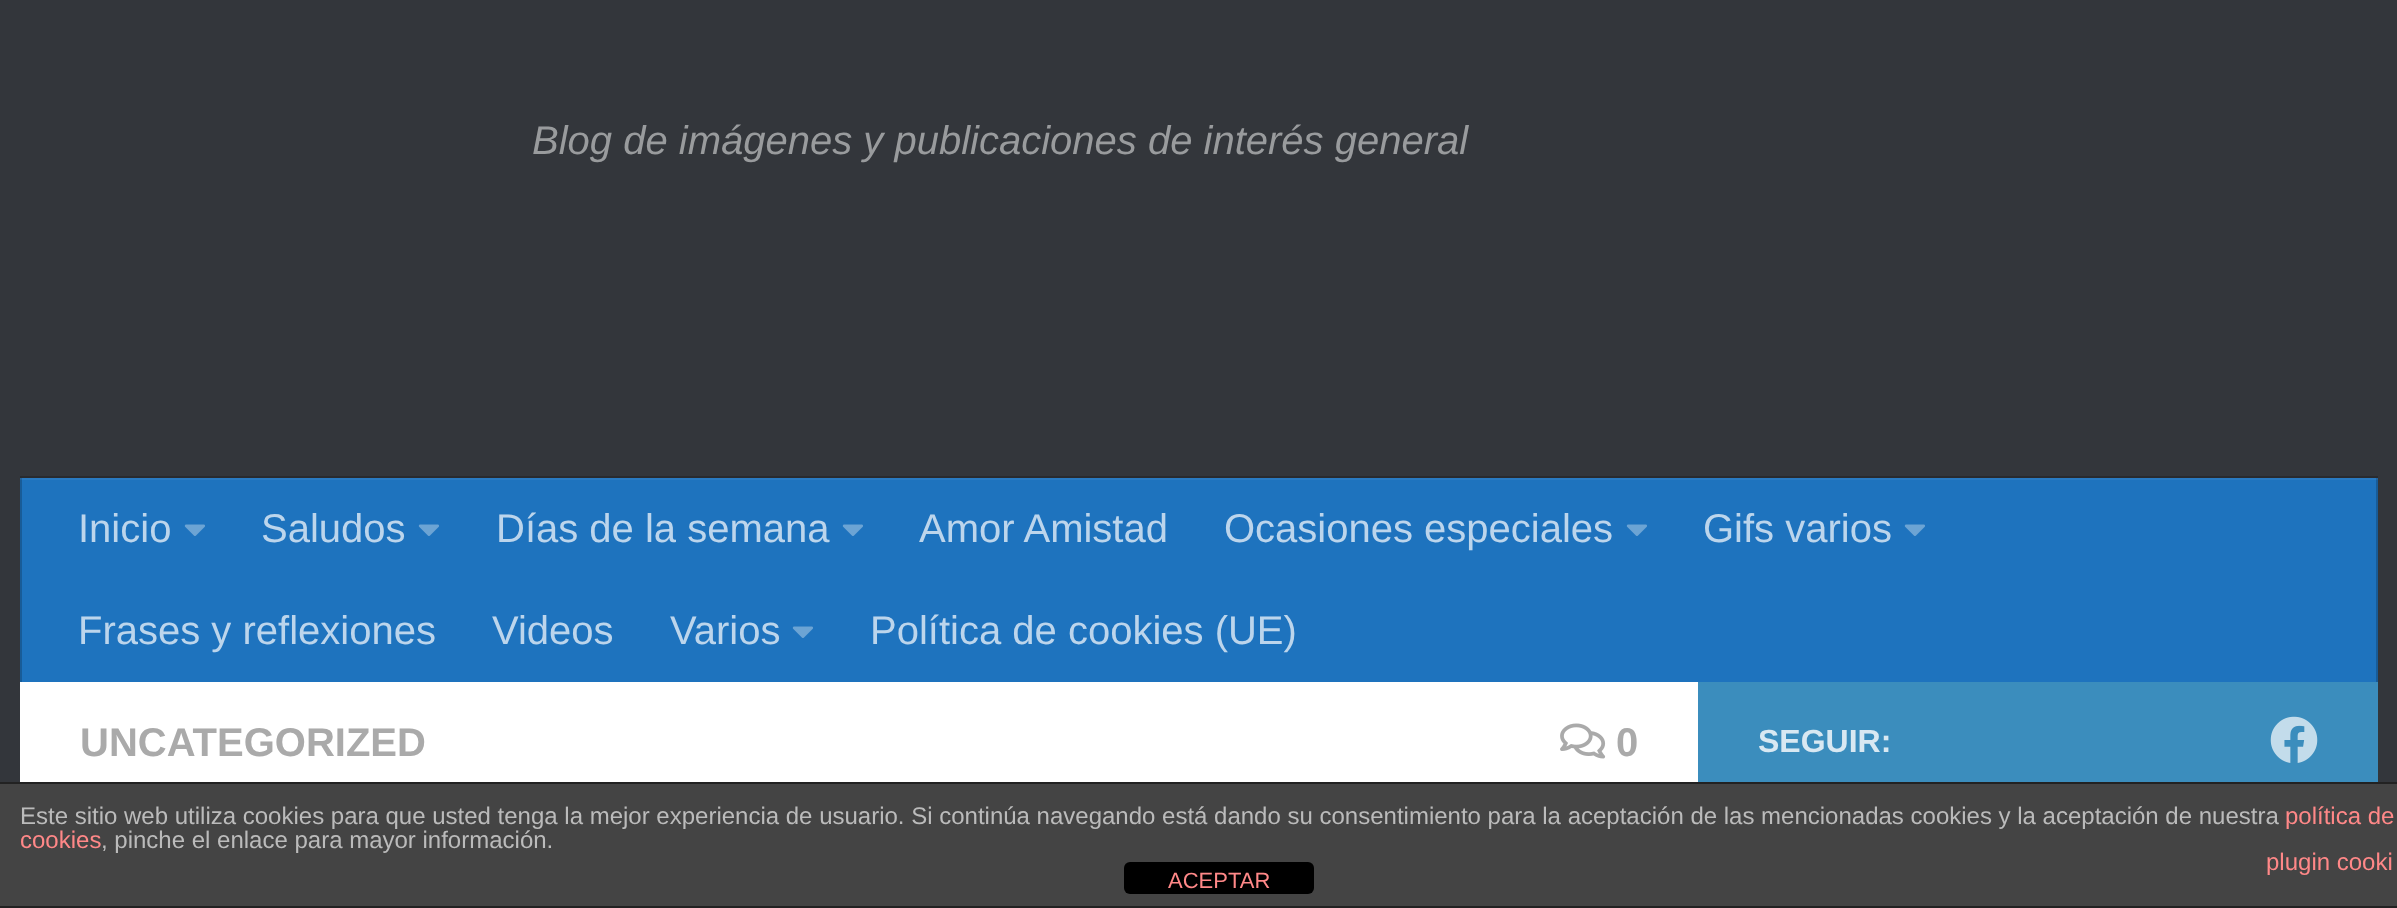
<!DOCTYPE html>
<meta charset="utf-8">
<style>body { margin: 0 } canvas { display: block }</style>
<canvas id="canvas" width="2397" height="908"></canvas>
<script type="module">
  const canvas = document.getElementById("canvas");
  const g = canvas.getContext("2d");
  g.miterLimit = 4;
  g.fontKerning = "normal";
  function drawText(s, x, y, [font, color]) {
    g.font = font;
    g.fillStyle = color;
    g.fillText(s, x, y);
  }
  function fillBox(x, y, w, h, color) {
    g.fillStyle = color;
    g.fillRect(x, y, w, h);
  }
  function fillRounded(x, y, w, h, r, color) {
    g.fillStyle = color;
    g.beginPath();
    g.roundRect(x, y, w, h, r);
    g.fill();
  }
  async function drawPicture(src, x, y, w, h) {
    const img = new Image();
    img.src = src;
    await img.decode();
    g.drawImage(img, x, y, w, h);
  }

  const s1 = ["italic 40px Liberation Sans", "#999B9D"];
  const s2 = ["40px Liberation Sans", "#BCD5EC"];
  const s3 = ["bold 40px Liberation Sans", "#AAAAAA"];
  const s4 = ["bold 32px Liberation Sans", "#D8E8F2"];
  const s5 = ["24px Liberation Sans", "#BBBBBB"];
  const s6 = ["24px Liberation Sans", "#FF8888"];
  const s7 = ["22px Liberation Sans", "#FF8888"];

  fillBox(0, 0, 2397, 908, "#33363B");
  drawText("Blog de imágenes y publicaciones de interés general", 532, 154, s1);
  fillBox(20, 476, 2358, 2, "#292B2F");
  fillBox(22, 480, 2354, 202, "#1E73BE");
  fillBox(20, 478, 2358, 2, "#297AC1");
  fillBox(2376, 478, 2, 204, "#185C98");
  fillBox(2376, 478, 2, 2, "#24649D");
  fillBox(20, 478, 2, 204, "#185C98");
  fillBox(20, 478, 2, 2, "#24649D");
  drawText("Inicio", 78, 542, s2);
  await drawPicture("pic1.png", 184, 524, 21, 12);
  drawText("Saludos", 261, 542, s2);
  await drawPicture("pic1.png", 418, 524, 21, 12);
  drawText("Días de la semana", 496, 542, s2);
  await drawPicture("pic1.png", 842, 524, 21, 12);
  drawText("Amor Amistad", 919, 542, s2);
  drawText("Ocasiones especiales", 1224, 542, s2);
  await drawPicture("pic1.png", 1626, 524, 21, 12);
  drawText("Gifs varios", 1703, 542, s2);
  await drawPicture("pic1.png", 1904, 524, 21, 12);
  drawText("Frases y reflexiones", 78, 644, s2);
  drawText("Videos", 492, 644, s2);
  drawText("Varios", 670, 644, s2);
  await drawPicture("pic1.png", 792, 626, 21, 12);
  drawText("Política de cookies (UE)", 870, 644, s2);
  fillBox(20, 682, 1678, 100, "#FFFFFF");
  drawText("UNCATEGORIZED", 80, 756, s3);
  await drawPicture("pic2.png", 1560, 723, 46, 36);
  drawText("0", 1616, 756, s3);
  fillBox(1698, 682, 680, 100, "#3B8DBD");
  drawText("SEGUIR:", 1758, 752, s4);
  await drawPicture("pic3.png", 2270, 716, 48, 47);
  fillBox(0, 784, 2397, 122, "#444444");
  fillBox(0, 782, 2397, 2, "#222222");
  fillBox(0, 906, 2397, 2, "#222222");
  drawText("Este sitio web utiliza cookies para que usted tenga la mejor experiencia de usuario. Si continúa navegando está dando su consentimiento para la aceptación de las mencionadas cookies y la aceptación de nuestra", 20, 824, s5);
  drawText("política de", 2285, 824, s6);
  drawText("cookies", 20, 848, s6);
  drawText(", pinche el enlace para mayor información.", 101, 848, s5);
  drawText("plugin cooki", 2266, 870, s6);
  fillRounded(1124, 862, 190, 32, 6, "#000000");
  drawText("ACEPTAR", 1168, 888, s7);
</script>
